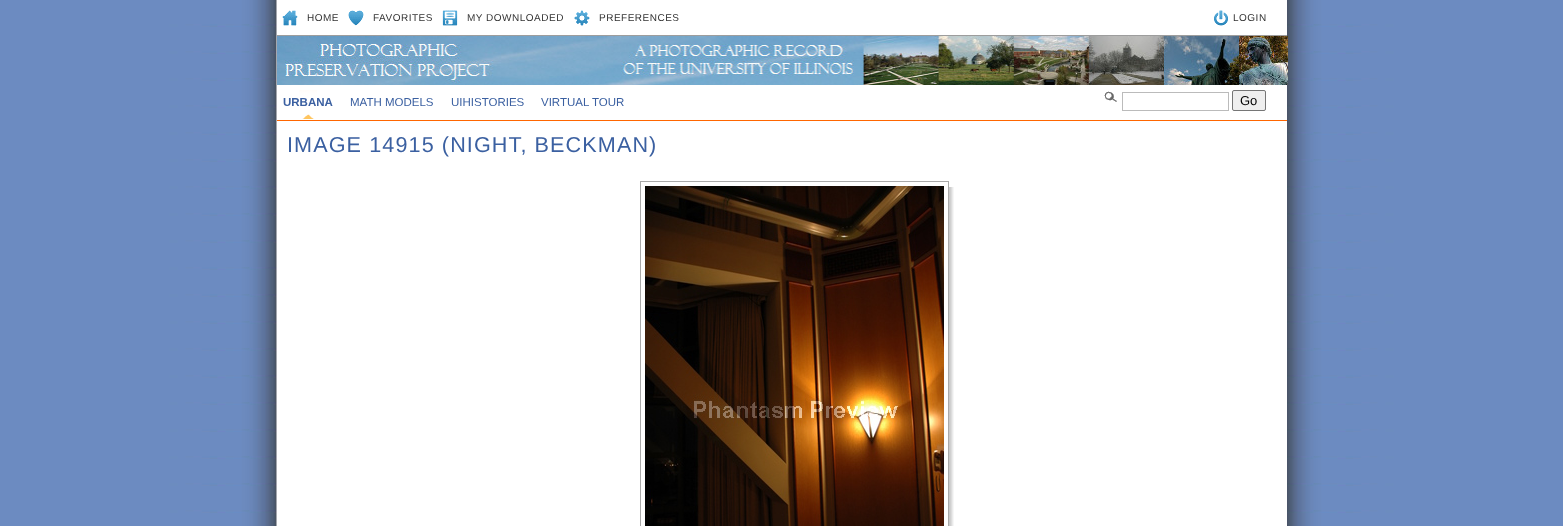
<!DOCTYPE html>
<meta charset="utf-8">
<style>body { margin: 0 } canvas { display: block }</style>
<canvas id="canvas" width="1563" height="526"></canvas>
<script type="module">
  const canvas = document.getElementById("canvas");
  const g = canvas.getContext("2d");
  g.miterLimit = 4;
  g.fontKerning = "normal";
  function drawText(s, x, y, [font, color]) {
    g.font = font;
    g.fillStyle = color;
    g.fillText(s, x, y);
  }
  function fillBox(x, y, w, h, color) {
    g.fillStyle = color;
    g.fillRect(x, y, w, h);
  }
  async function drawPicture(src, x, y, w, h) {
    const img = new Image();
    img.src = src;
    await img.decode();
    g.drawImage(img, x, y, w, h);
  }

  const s1 = ["10px Liberation Sans", "#333333"];
  const s2 = ["bold 11.5px Liberation Sans", "#3B60A1"];
  const s3 = ["11.5px Liberation Sans", "#3B60A1"];
  const s4 = ["21.6px Liberation Sans", "#3B60A1"];
  const s5 = ["13px Liberation Sans", "#000000"];

  fillBox(0, 0, 1563, 526, "#FFFFFF");
  await drawPicture("pic1.png", 0, 0, 1563, 526);
  fillBox(277, 0, 1010, 526, "#FFFFFF");
  fillBox(277, 35, 1010, 1, "#9D9D9D");
  await drawPicture("pic2.png", 282, 10, 16, 16);
  g.letterSpacing = "0.5px";
  drawText("HOME", 307, 21, s1);
  await drawPicture("pic3.png", 348, 10, 16, 16);
  drawText("FAVORITES", 373, 21, s1);
  await drawPicture("pic4.png", 442, 10, 16, 16);
  drawText("MY DOWNLOADED", 467, 21, s1);
  await drawPicture("pic5.png", 574, 10, 16, 16);
  drawText("PREFERENCES", 599, 21, s1);
  await drawPicture("pic6.png", 1214, 10, 14, 16);
  drawText("LOGIN", 1233, 21, s1);
  await drawPicture("pic7.png", 277, 36, 1011, 49);
  fillBox(277, 120, 1010, 1, "#FF6600");
  await drawPicture("pic8.png", 299, 90, 18, 29);
  g.letterSpacing = "0px";
  drawText("URBANA", 283, 106, s2);
  drawText("MATH MODELS", 350, 106, s3);
  drawText("UIHISTORIES", 451, 106, s3);
  drawText("VIRTUAL TOUR", 541, 106, s3);
  g.letterSpacing = "1.1px";
  drawText("IMAGE 14915 (NIGHT, BECKMAN)", 287, 152, s4);
  await drawPicture("pic9.png", 949, 187, 5, 339);
  g.strokeStyle = "#A9A9A9";
  g.strokeRect(640.5, 181.5, 308, 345);
  await drawPicture("pic10.png", 645, 186, 299, 340);
  await drawPicture("pic11.png", 1104, 91, 13, 11);
  g.strokeStyle = "#BBBBBB";
  g.strokeRect(1122.5, 92.5, 106, 18);
  g.fillStyle = "#EFEFEF";
  g.beginPath();
  g.roundRect(1232.5, 90.5, 33, 20, 1.5);
  g.fill();
  g.strokeStyle = "#767676";
  g.stroke();
  g.letterSpacing = "0px";
  drawText("Go", 1240, 105, s5);
</script>
